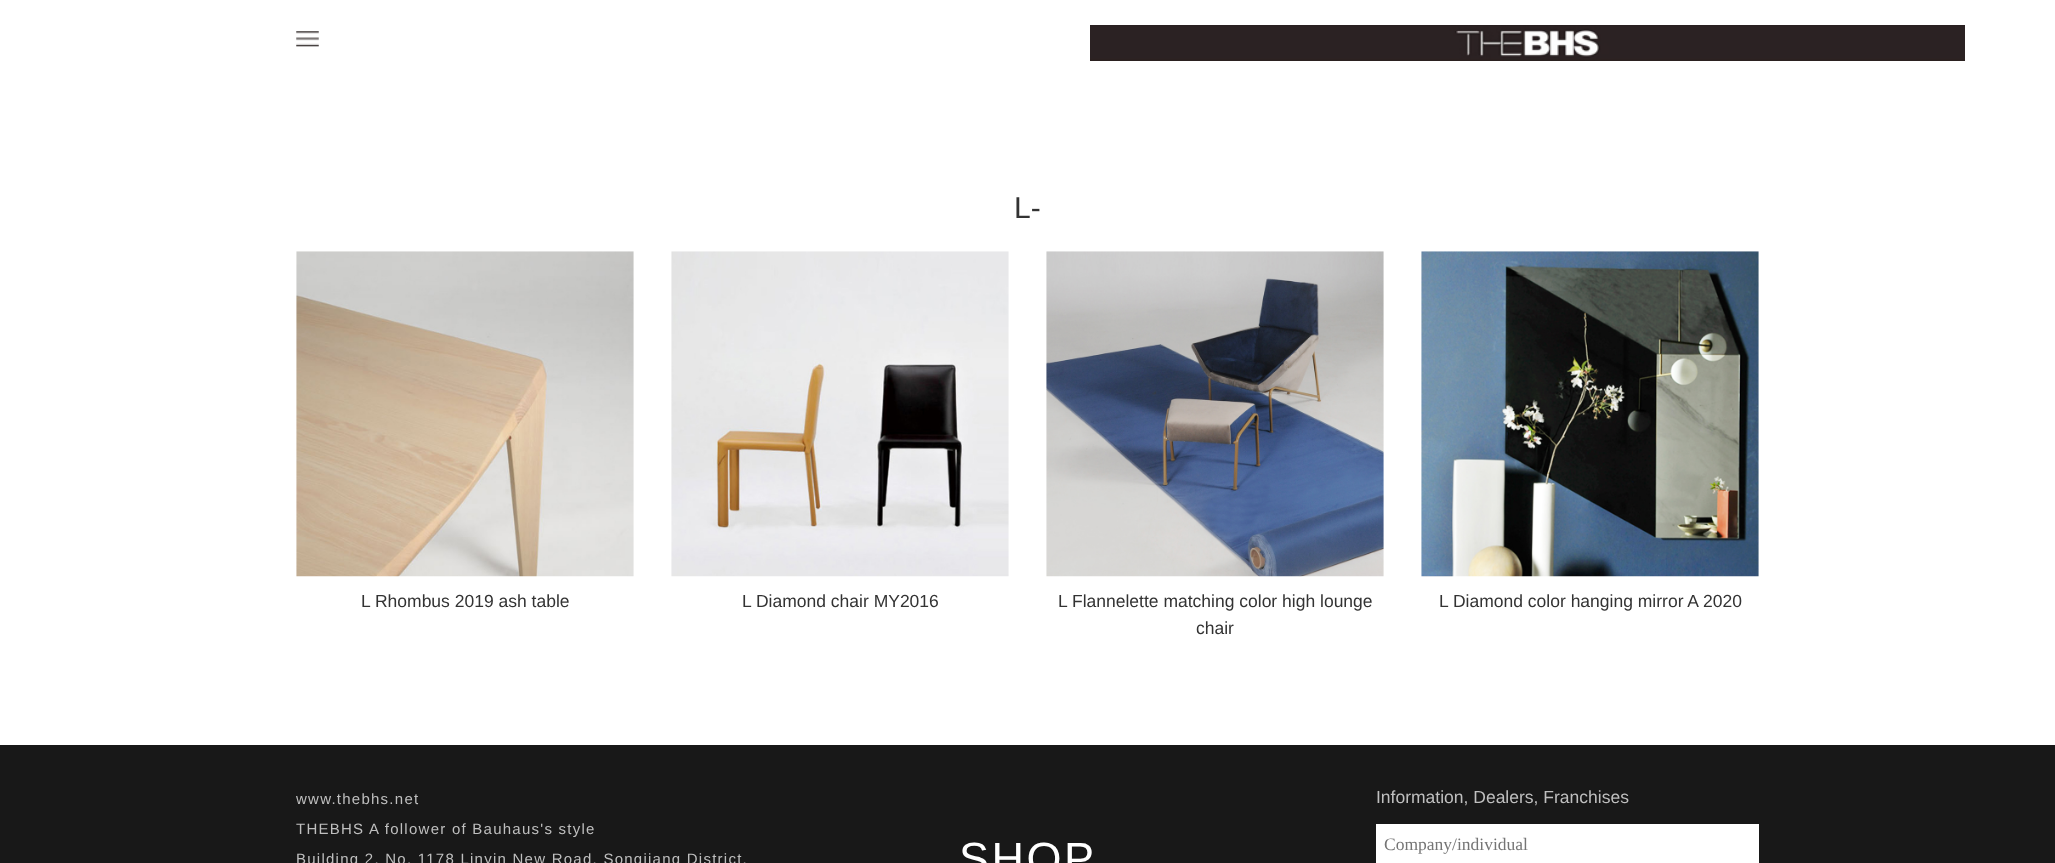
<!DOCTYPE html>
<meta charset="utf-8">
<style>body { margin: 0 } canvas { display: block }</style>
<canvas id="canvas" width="2055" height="863"></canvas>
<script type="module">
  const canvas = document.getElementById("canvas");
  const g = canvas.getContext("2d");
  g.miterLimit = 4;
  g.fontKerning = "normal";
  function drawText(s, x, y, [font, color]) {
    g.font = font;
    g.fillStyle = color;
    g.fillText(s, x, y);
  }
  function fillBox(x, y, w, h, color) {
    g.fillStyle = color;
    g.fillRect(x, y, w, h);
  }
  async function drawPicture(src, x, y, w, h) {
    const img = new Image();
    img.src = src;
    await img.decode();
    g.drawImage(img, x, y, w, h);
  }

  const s1 = ["30px Liberation Sans", "#333333"];
  const s2 = ["17.5px Liberation Sans", "#333333"];
  const s3 = ["15px Liberation Sans", "#BFBFBF"];
  const s4 = ["45px Liberation Sans", "#FFFFFF"];
  const s5 = ["17.5px Liberation Sans", "#BFBFBF"];
  const s6 = ["17.5px Liberation Serif", "#757575"];

  fillBox(0, 0, 2055, 863, "#FFFFFF");
  await drawPicture("pic1.png", 296, 31, 23, 16);
  await drawPicture("pic2.png", 1090, 25, 875, 36);
  drawText("L-", 1014, 218, s1);
  await drawPicture("pic3.png", 296, 251, 338, 326);
  drawText("L Rhombus 2019 ash table", 361, 607, s2);
  await drawPicture("pic4.png", 671, 251, 338, 326);
  drawText("L Diamond chair MY2016", 742, 607, s2);
  await drawPicture("pic5.png", 1046, 251, 338, 326);
  drawText("L Flannelette matching color high lounge", 1058, 607, s2);
  drawText("chair", 1196, 634, s2);
  await drawPicture("pic6.png", 1421, 251, 338, 326);
  drawText("L Diamond color hanging mirror A 2020", 1439, 607, s2);
  fillBox(0, 745, 2055, 118, "#181818");
  g.letterSpacing = "1.25px";
  drawText("www.thebhs.net", 296, 804, s3);
  drawText("THEBHS A follower of Bauhaus's style", 296, 834, s3);
  drawText("Building 2, No. 1178 Linyin New Road, Songjiang District,", 296, 864, s3);
  g.letterSpacing = "2.5px";
  drawText("SHOP", 959, 874, s4);
  g.letterSpacing = "0px";
  drawText("Information, Dealers, Franchises", 1376, 803, s5);
  fillBox(1376, 824, 383, 39, "#FFFFFF");
  drawText("Company/individual", 1384, 850, s6);
</script>
